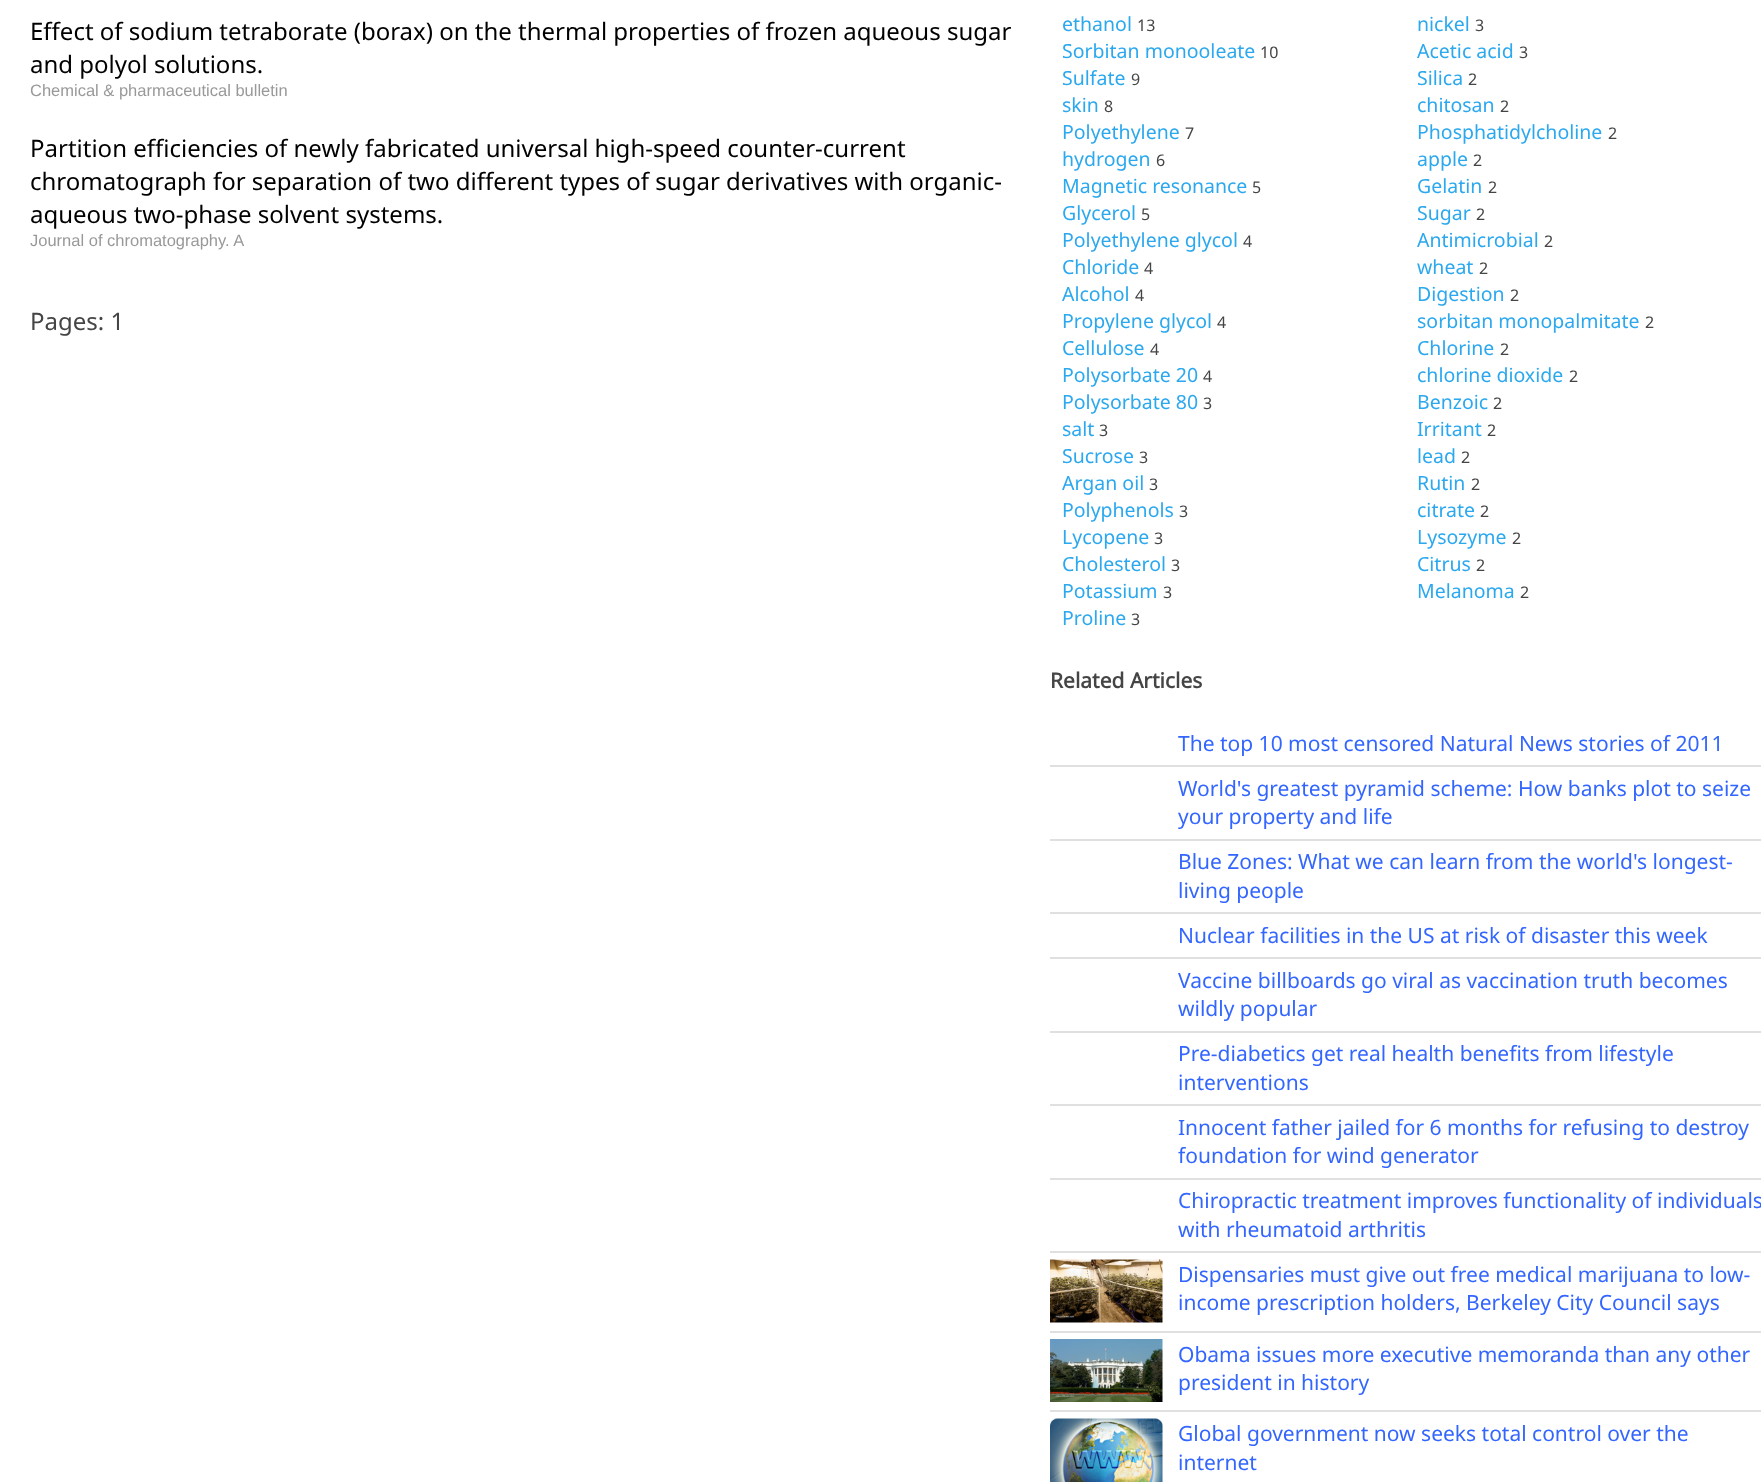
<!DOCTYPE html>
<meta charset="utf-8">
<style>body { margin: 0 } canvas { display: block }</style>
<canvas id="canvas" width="1761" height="1482"></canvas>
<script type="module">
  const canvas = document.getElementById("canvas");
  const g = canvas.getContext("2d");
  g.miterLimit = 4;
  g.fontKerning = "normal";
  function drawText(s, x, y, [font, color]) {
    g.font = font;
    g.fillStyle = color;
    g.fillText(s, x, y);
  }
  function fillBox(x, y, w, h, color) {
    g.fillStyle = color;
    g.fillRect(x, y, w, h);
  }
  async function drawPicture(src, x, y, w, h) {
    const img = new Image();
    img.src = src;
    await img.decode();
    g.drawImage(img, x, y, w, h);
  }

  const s1 = ["24px Noto Sans", "#000000"];
  const s2 = ["16.5px Liberation Sans", "#999999"];
  const s3 = ["24px Noto Sans", "#454545"];
  const s4 = ["19.5px Noto Sans", "#2BA8EE"];
  const s5 = ["16px Noto Sans", "#454545"];
  const s6 = ["bold 21px Noto Sans", "#454545"];
  const s7 = ["21px Noto Sans", "#3366FF"];

  fillBox(0, 0, 1761, 1482, "#FFFFFF");
  drawText("Effect of sodium tetraborate (borax) on the thermal properties of frozen aqueous sugar", 30, 40, s1);
  drawText("and polyol solutions.", 30, 73, s1);
  drawText("Chemical & pharmaceutical bulletin", 30, 96, s2);
  drawText("Partition efficiencies of newly fabricated universal high-speed counter-current", 30, 157, s1);
  drawText("chromatograph for separation of two different types of sugar derivatives with organic-", 30, 190, s1);
  drawText("aqueous two-phase solvent systems.", 30, 223, s1);
  drawText("Journal of chromatography. A", 30, 246, s2);
  drawText("Pages: 1", 30, 330, s3);
  drawText("ethanol", 1062, 31, s4);
  drawText("13", 1137, 31, s5);
  drawText("Sorbitan monooleate", 1062, 58, s4);
  drawText("10", 1260, 58, s5);
  drawText("Sulfate", 1062, 85, s4);
  drawText("9", 1131, 85, s5);
  drawText("skin", 1062, 112, s4);
  drawText("8", 1104, 112, s5);
  drawText("Polyethylene", 1062, 139, s4);
  drawText("7", 1185, 139, s5);
  drawText("hydrogen", 1062, 166, s4);
  drawText("6", 1156, 166, s5);
  drawText("Magnetic resonance", 1062, 193, s4);
  drawText("5", 1252, 193, s5);
  drawText("Glycerol", 1062, 220, s4);
  drawText("5", 1141, 220, s5);
  drawText("Polyethylene glycol", 1062, 247, s4);
  drawText("4", 1243, 247, s5);
  drawText("Chloride", 1062, 274, s4);
  drawText("4", 1144, 274, s5);
  drawText("Alcohol", 1062, 301, s4);
  drawText("4", 1135, 301, s5);
  drawText("Propylene glycol", 1062, 328, s4);
  drawText("4", 1217, 328, s5);
  drawText("Cellulose", 1062, 355, s4);
  drawText("4", 1150, 355, s5);
  drawText("Polysorbate 20", 1062, 382, s4);
  drawText("4", 1203, 382, s5);
  drawText("Polysorbate 80", 1062, 409, s4);
  drawText("3", 1203, 409, s5);
  drawText("salt", 1062, 436, s4);
  drawText("3", 1099, 436, s5);
  drawText("Sucrose", 1062, 463, s4);
  drawText("3", 1139, 463, s5);
  drawText("Argan oil", 1062, 490, s4);
  drawText("3", 1149, 490, s5);
  drawText("Polyphenols", 1062, 517, s4);
  drawText("3", 1179, 517, s5);
  drawText("Lycopene", 1062, 544, s4);
  drawText("3", 1154, 544, s5);
  drawText("Cholesterol", 1062, 571, s4);
  drawText("3", 1171, 571, s5);
  drawText("Potassium", 1062, 598, s4);
  drawText("3", 1163, 598, s5);
  drawText("Proline", 1062, 625, s4);
  drawText("3", 1131, 625, s5);
  drawText("nickel", 1417, 31, s4);
  drawText("3", 1475, 31, s5);
  drawText("Acetic acid", 1417, 58, s4);
  drawText("3", 1519, 58, s5);
  drawText("Silica", 1417, 85, s4);
  drawText("2", 1468, 85, s5);
  drawText("chitosan", 1417, 112, s4);
  drawText("2", 1500, 112, s5);
  drawText("Phosphatidylcholine", 1417, 139, s4);
  drawText("2", 1608, 139, s5);
  drawText("apple", 1417, 166, s4);
  drawText("2", 1473, 166, s5);
  drawText("Gelatin", 1417, 193, s4);
  drawText("2", 1488, 193, s5);
  drawText("Sugar", 1417, 220, s4);
  drawText("2", 1476, 220, s5);
  drawText("Antimicrobial", 1417, 247, s4);
  drawText("2", 1544, 247, s5);
  drawText("wheat", 1417, 274, s4);
  drawText("2", 1479, 274, s5);
  drawText("Digestion", 1417, 301, s4);
  drawText("2", 1510, 301, s5);
  drawText("sorbitan monopalmitate", 1417, 328, s4);
  drawText("2", 1645, 328, s5);
  drawText("Chlorine", 1417, 355, s4);
  drawText("2", 1500, 355, s5);
  drawText("chlorine dioxide", 1417, 382, s4);
  drawText("2", 1569, 382, s5);
  drawText("Benzoic", 1417, 409, s4);
  drawText("2", 1493, 409, s5);
  drawText("Irritant", 1417, 436, s4);
  drawText("2", 1487, 436, s5);
  drawText("lead", 1417, 463, s4);
  drawText("2", 1461, 463, s5);
  drawText("Rutin", 1417, 490, s4);
  drawText("2", 1471, 490, s5);
  drawText("citrate", 1417, 517, s4);
  drawText("2", 1480, 517, s5);
  drawText("Lysozyme", 1417, 544, s4);
  drawText("2", 1512, 544, s5);
  drawText("Citrus", 1417, 571, s4);
  drawText("2", 1476, 571, s5);
  drawText("Melanoma", 1417, 598, s4);
  drawText("2", 1520, 598, s5);
  drawText("Related Articles", 1050, 688, s6);
  drawText("The top 10 most censored Natural News stories of 2011", 1178, 751, s7);
  fillBox(1050, 765, 711, 2, "#E0E0E0");
  drawText("World's greatest pyramid scheme: How banks plot to seize", 1178, 796, s7);
  drawText("your property and life", 1178, 824, s7);
  fillBox(1050, 839, 711, 2, "#E0E0E0");
  drawText("Blue Zones: What we can learn from the world's longest-", 1178, 869, s7);
  drawText("living people", 1178, 898, s7);
  fillBox(1050, 912, 711, 2, "#E0E0E0");
  drawText("Nuclear facilities in the US at risk of disaster this week", 1178, 943, s7);
  fillBox(1050, 957, 711, 2, "#E0E0E0");
  drawText("Vaccine billboards go viral as vaccination truth becomes", 1178, 988, s7);
  drawText("wildly popular", 1178, 1016, s7);
  fillBox(1050, 1031, 711, 2, "#E0E0E0");
  drawText("Pre-diabetics get real health benefits from lifestyle", 1178, 1061, s7);
  drawText("interventions", 1178, 1090, s7);
  fillBox(1050, 1104, 711, 2, "#E0E0E0");
  drawText("Innocent father jailed for 6 months for refusing to destroy", 1178, 1135, s7);
  drawText("foundation for wind generator", 1178, 1163, s7);
  fillBox(1050, 1178, 711, 2, "#E0E0E0");
  drawText("Chiropractic treatment improves functionality of individuals", 1178, 1208, s7);
  drawText("with rheumatoid arthritis", 1178, 1237, s7);
  fillBox(1050, 1251, 711, 2, "#E0E0E0");
  fillBox(1050, 1331, 711, 2, "#E0E0E0");
  await drawPicture("pic1.png", 1050, 1259, 113, 64);
  drawText("Dispensaries must give out free medical marijuana to low-", 1178, 1282, s7);
  drawText("income prescription holders, Berkeley City Council says", 1178, 1310, s7);
  fillBox(1050, 1410, 711, 2, "#E0E0E0");
  await drawPicture("pic2.png", 1050, 1339, 113, 63);
  drawText("Obama issues more executive memoranda than any other", 1178, 1362, s7);
  drawText("president in history", 1178, 1390, s7);
  await drawPicture("pic3.png", 1050, 1418, 113, 64);
  drawText("Global government now seeks total control over the", 1178, 1441, s7);
  drawText("internet", 1178, 1470, s7);
</script>
